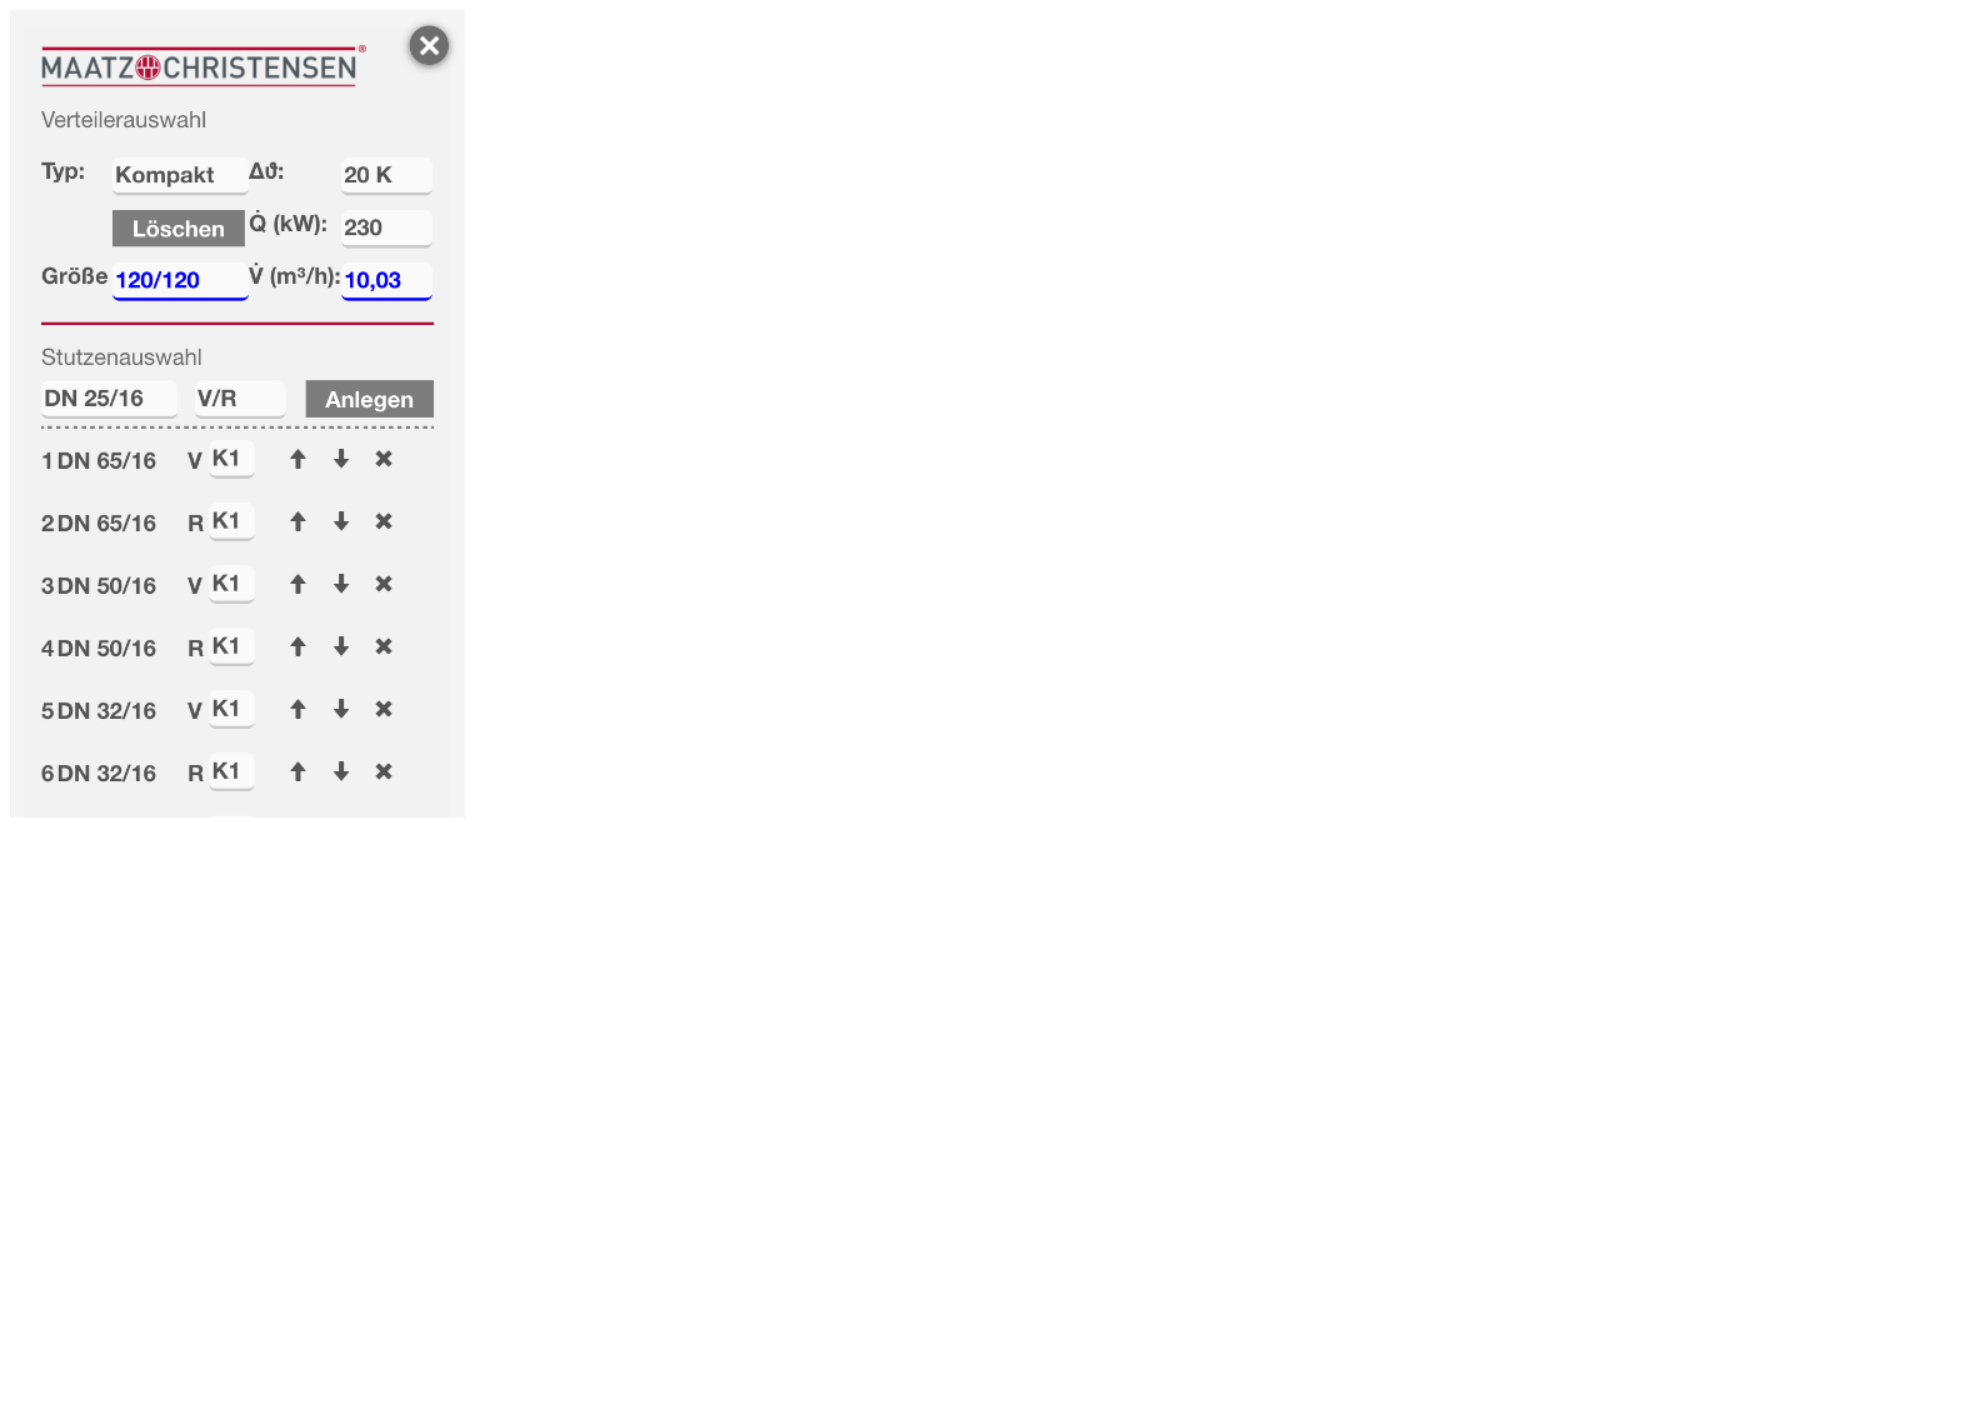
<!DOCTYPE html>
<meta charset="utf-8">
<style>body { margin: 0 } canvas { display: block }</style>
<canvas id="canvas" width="1962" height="1422"></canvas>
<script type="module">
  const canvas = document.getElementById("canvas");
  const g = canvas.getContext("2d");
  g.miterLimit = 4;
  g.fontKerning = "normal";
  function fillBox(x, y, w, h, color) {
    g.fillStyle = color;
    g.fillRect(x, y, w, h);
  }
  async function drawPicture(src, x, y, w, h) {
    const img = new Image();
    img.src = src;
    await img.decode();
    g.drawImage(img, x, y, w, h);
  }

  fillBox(0, 0, 1962, 1422, "#FFFFFF");
  await drawPicture("pic1.png", 10, 10, 455, 808);
</script>
